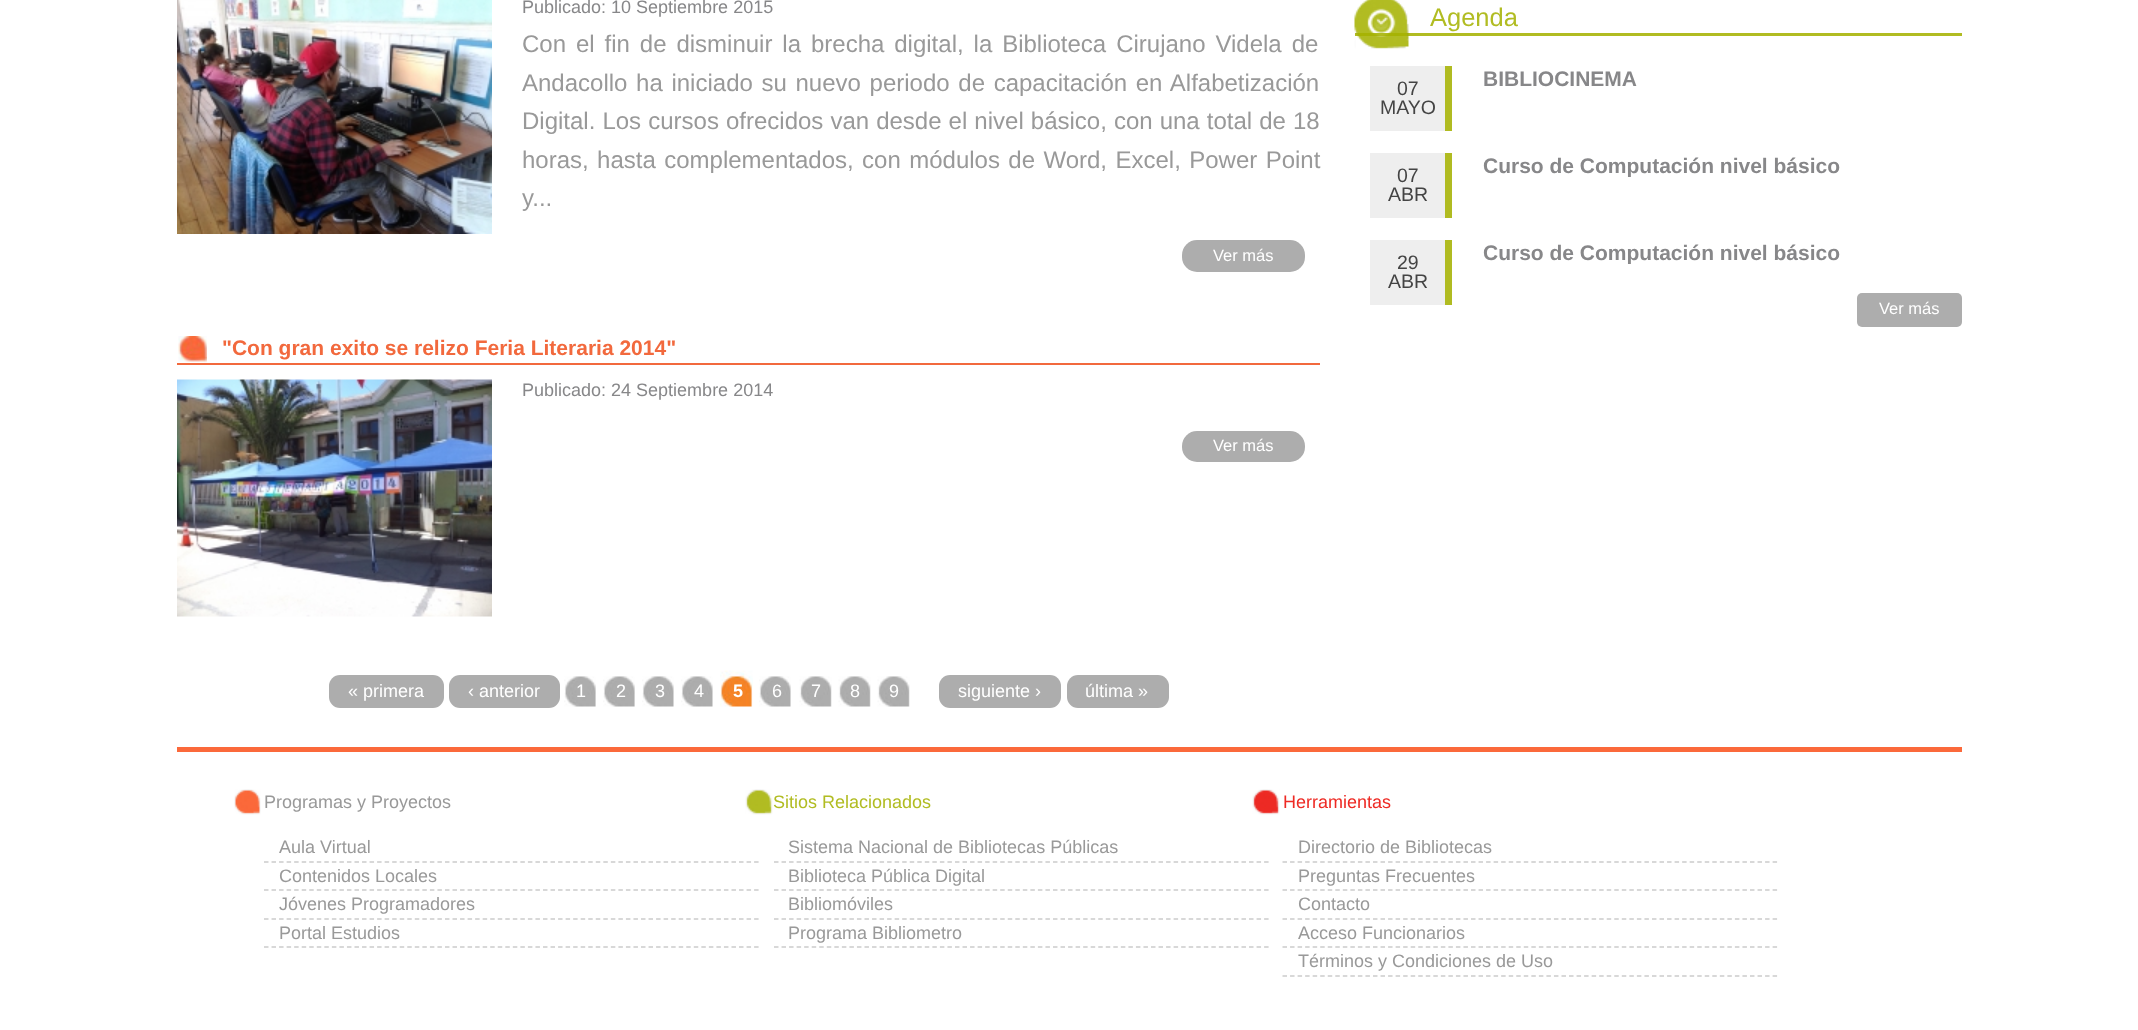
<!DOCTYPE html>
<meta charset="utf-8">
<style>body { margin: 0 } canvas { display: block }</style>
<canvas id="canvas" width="2138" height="1030"></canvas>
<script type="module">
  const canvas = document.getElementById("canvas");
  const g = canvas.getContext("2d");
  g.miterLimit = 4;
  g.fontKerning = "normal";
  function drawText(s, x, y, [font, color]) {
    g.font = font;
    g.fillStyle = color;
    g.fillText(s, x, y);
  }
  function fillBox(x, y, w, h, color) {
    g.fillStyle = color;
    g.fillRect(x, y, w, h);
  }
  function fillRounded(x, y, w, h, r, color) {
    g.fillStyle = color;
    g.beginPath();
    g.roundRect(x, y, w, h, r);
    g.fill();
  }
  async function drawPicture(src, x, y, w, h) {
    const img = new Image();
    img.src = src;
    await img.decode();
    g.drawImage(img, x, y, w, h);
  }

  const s1 = ["18px Liberation Sans", "#878789"];
  const s2 = ["24px Liberation Sans", "#999999"];
  const s3 = ["16.5px Liberation Sans", "#FFFFFF"];
  const s4 = ["bold 21px Liberation Sans", "#F2693D"];
  const s5 = ["18px Liberation Sans", "#FFFFFF"];
  const s6 = ["bold 18px Liberation Sans", "#FFFFFF"];
  const s7 = ["25.5px Liberation Sans", "#B1BC22"];
  const s8 = ["bold 21px Liberation Sans", "#878789"];
  const s9 = ["19.5px Liberation Sans", "#444444"];
  const s10 = ["18px Liberation Sans", "#999999"];
  const s11 = ["18px Liberation Sans", "#B1BC22"];
  const s12 = ["18px Liberation Sans", "#EE2A24"];

  fillBox(0, 0, 2138, 1030, "#FFFFFF");
  await drawPicture("pic1.png", 177, 0, 315, 234);
  drawText("Publicado: 10 Septiembre 2015", 522, 13, s1);
  g.wordSpacing = "3.25px";
  drawText("Con el fin de disminuir la brecha digital, la Biblioteca Cirujano Videla de", 522, 52, s2);
  g.wordSpacing = "2px";
  drawText("Andacollo ha iniciado su nuevo periodo de capacitación en Alfabetización", 522, 91, s2);
  g.wordSpacing = "0.4px";
  drawText("Digital. Los cursos ofrecidos van desde el nivel básico, con una total de 18", 522, 129, s2);
  g.wordSpacing = "1.75px";
  drawText("horas, hasta complementados, con módulos de Word, Excel, Power Point", 522, 168, s2);
  g.wordSpacing = "0px";
  drawText("y...", 522, 206, s2);
  fillRounded(1182, 240, 123, 32, 15, "#ADADAD");
  drawText("Ver más", 1213, 261, s3);
  await drawPicture("pic2.png", 178, 336, 29, 27);
  fillBox(177, 363, 1143, 2, "#F2693D");
  drawText("\"Con gran exito se relizo Feria Literaria 2014\"", 222, 355, s4);
  await drawPicture("pic3.png", 177, 379, 315, 238);
  drawText("Publicado: 24 Septiembre 2014", 522, 396, s1);
  fillRounded(1182, 431, 123, 31, 15, "#ADADAD");
  drawText("Ver más", 1213, 451, s3);
  fillRounded(329, 675, 115, 33, 11, "#ADADAD");
  drawText("« primera", 348, 697, s5);
  fillRounded(449, 675, 111, 33, 11, "#ADADAD");
  drawText("‹ anterior", 468, 697, s5);
  await drawPicture("pic4.png", 564, 676, 32, 31);
  await drawPicture("pic4.png", 603, 676, 32, 31);
  await drawPicture("pic5.png", 642, 676, 32, 31);
  await drawPicture("pic5.png", 681, 676, 32, 31);
  await drawPicture("pic6.png", 720, 670, 33, 37);
  await drawPicture("pic7.png", 759, 676, 32, 31);
  await drawPicture("pic8.png", 799, 676, 33, 31);
  await drawPicture("pic8.png", 838, 676, 33, 31);
  await drawPicture("pic8.png", 877, 676, 33, 31);
  fillRounded(939, 675, 122, 33, 11, "#ADADAD");
  drawText("siguiente ›", 958, 697, s5);
  fillRounded(1067, 675, 102, 33, 11, "#ADADAD");
  drawText("última »", 1085, 697, s5);
  drawText("1", 576, 697, s5);
  drawText("2", 616, 697, s5);
  drawText("3", 655, 697, s5);
  drawText("4", 694, 697, s5);
  drawText("5", 733, 697, s6);
  drawText("6", 772, 697, s5);
  drawText("7", 811, 697, s5);
  drawText("8", 850, 697, s5);
  drawText("9", 889, 697, s5);
  fillBox(1355, 33, 607, 3, "#B1BC22");
  await drawPicture("pic9.png", 1354, 0, 55, 49);
  drawText("Agenda", 1430, 26, s7);
  drawText("BIBLIOCINEMA", 1483, 86, s8);
  fillBox(1370, 66, 75, 65, "#EEEEEE");
  fillBox(1445, 66, 7, 65, "#B0BB21");
  drawText("07", 1397, 95, s9);
  drawText("MAYO", 1380, 114, s9);
  fillBox(1370, 153, 75, 65, "#EEEEEE");
  fillBox(1445, 153, 7, 65, "#B0BB21");
  drawText("07", 1397, 182, s9);
  drawText("ABR", 1388, 201, s9);
  g.save();
  g.beginPath();
  g.rect(1482, 153, 416, 24);
  g.clip();
  drawText("Curso de Computación nivel básico", 1483, 173, s8);
  g.restore();
  fillBox(1370, 240, 75, 65, "#EEEEEE");
  fillBox(1445, 240, 7, 65, "#B0BB21");
  drawText("29", 1397, 269, s9);
  drawText("ABR", 1388, 288, s9);
  g.save();
  g.beginPath();
  g.rect(1482, 240, 416, 24);
  g.clip();
  drawText("Curso de Computación nivel básico", 1483, 260, s8);
  g.restore();
  fillRounded(1857, 293, 105, 34, 5, "#ADADAD");
  drawText("Ver más", 1879, 314, s3);
  fillBox(177, 747, 1785, 5, "#FB693B");
  await drawPicture("pic10.png", 234, 789, 27, 26);
  drawText("Programas y Proyectos", 264, 808, s10);
  g.beginPath();
  g.moveTo(264, 862);
  g.lineTo(759, 862);
  g.strokeStyle = "#CCCCCC";
  g.lineWidth = 1.5;
  g.setLineDash([4.5, 3.04]);
  g.stroke();
  drawText("Aula Virtual", 279, 853, s10);
  g.beginPath();
  g.moveTo(264, 890);
  g.lineTo(759, 890);
  g.stroke();
  drawText("Contenidos Locales", 279, 882, s10);
  g.beginPath();
  g.moveTo(264, 919);
  g.lineTo(759, 919);
  g.stroke();
  drawText("Jóvenes Programadores", 279, 910, s10);
  g.beginPath();
  g.moveTo(264, 947);
  g.lineTo(759, 947);
  g.stroke();
  drawText("Portal Estudios", 279, 939, s10);
  await drawPicture("pic11.png", 745, 789, 28, 26);
  drawText("Sitios Relacionados", 773, 808, s11);
  g.beginPath();
  g.moveTo(774, 862);
  g.lineTo(1269, 862);
  g.stroke();
  drawText("Sistema Nacional de Bibliotecas Públicas", 788, 853, s10);
  g.beginPath();
  g.moveTo(774, 890);
  g.lineTo(1269, 890);
  g.stroke();
  drawText("Biblioteca Pública Digital", 788, 882, s10);
  g.beginPath();
  g.moveTo(774, 919);
  g.lineTo(1269, 919);
  g.stroke();
  drawText("Bibliomóviles", 788, 910, s10);
  g.beginPath();
  g.moveTo(774, 947);
  g.lineTo(1269, 947);
  g.stroke();
  drawText("Programa Bibliometro", 788, 939, s10);
  await drawPicture("pic12.png", 1252, 789, 28, 26);
  drawText("Herramientas", 1283, 808, s12);
  g.beginPath();
  g.moveTo(1282.5, 862);
  g.lineTo(1777.5, 862);
  g.stroke();
  drawText("Directorio de Bibliotecas", 1298, 853, s10);
  g.beginPath();
  g.moveTo(1282.5, 890);
  g.lineTo(1777.5, 890);
  g.stroke();
  drawText("Preguntas Frecuentes", 1298, 882, s10);
  g.beginPath();
  g.moveTo(1282.5, 919);
  g.lineTo(1777.5, 919);
  g.stroke();
  drawText("Contacto", 1298, 910, s10);
  g.beginPath();
  g.moveTo(1282.5, 947);
  g.lineTo(1777.5, 947);
  g.stroke();
  drawText("Acceso Funcionarios", 1298, 939, s10);
  g.beginPath();
  g.moveTo(1282.5, 976);
  g.lineTo(1777.5, 976);
  g.stroke();
  drawText("Términos y Condiciones de Uso", 1298, 967, s10);
</script>
